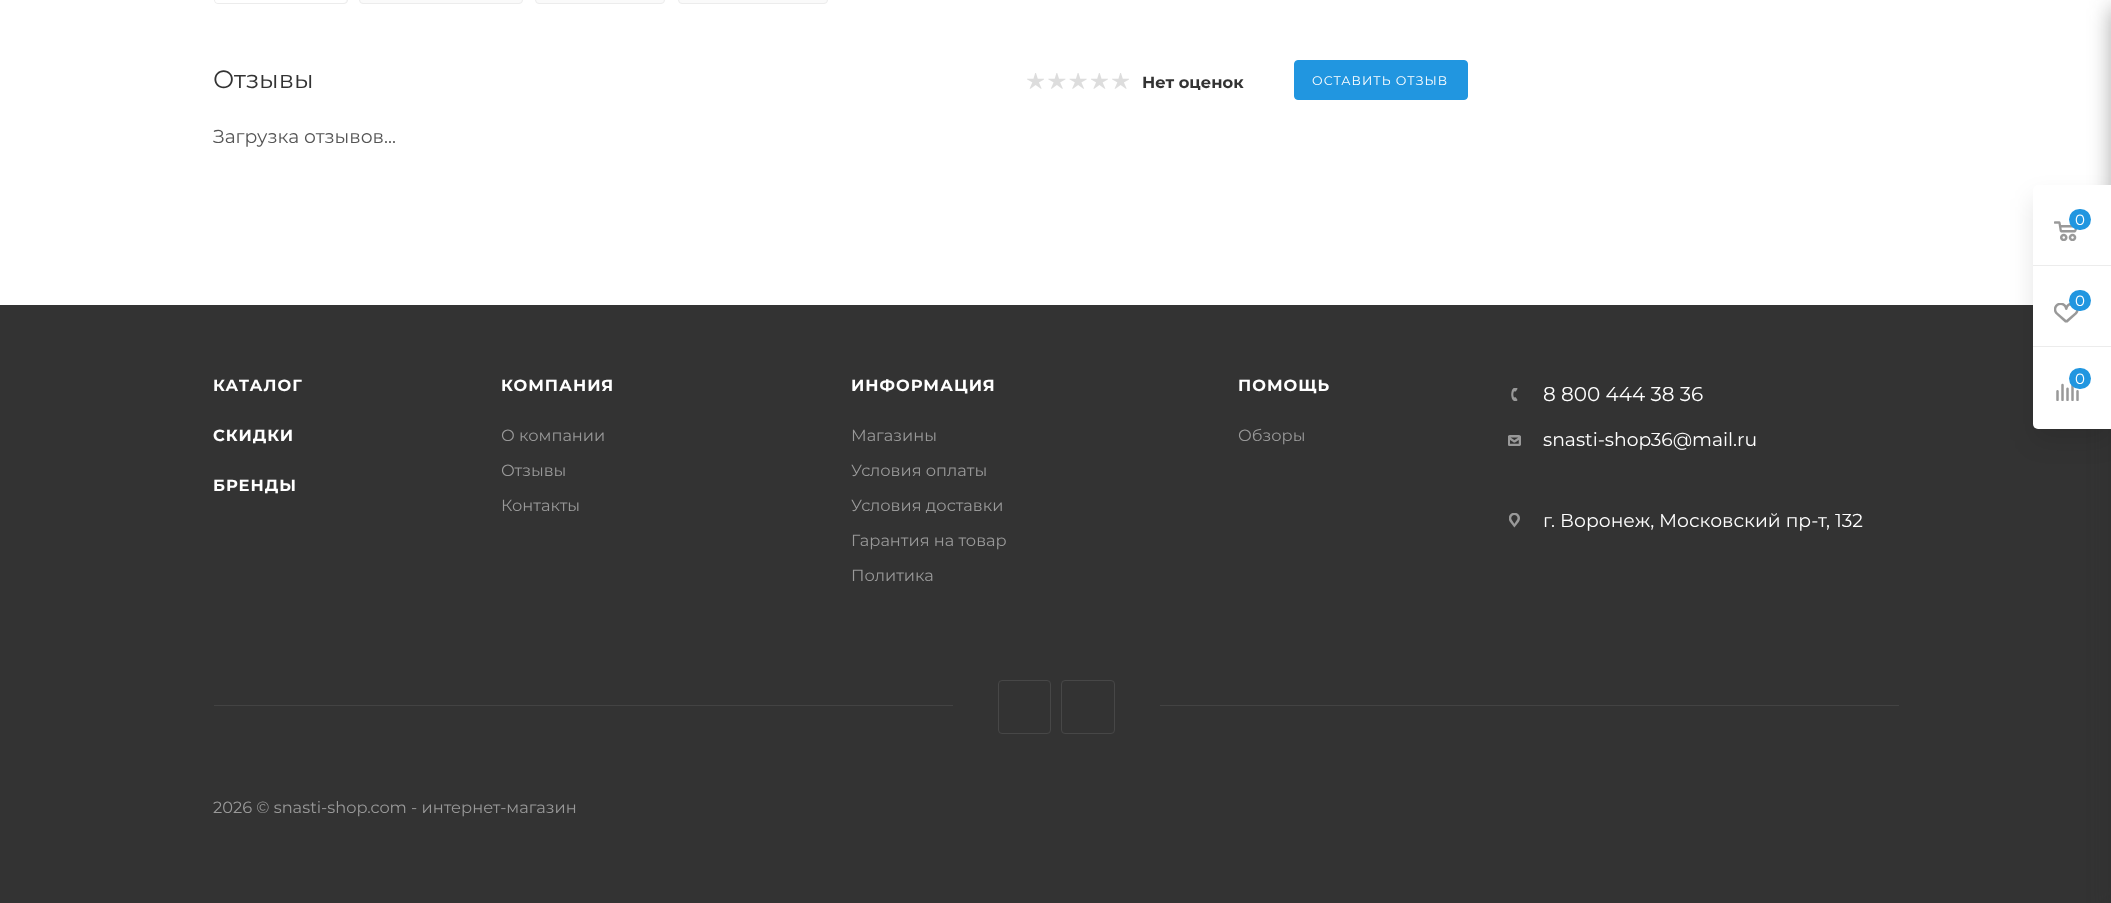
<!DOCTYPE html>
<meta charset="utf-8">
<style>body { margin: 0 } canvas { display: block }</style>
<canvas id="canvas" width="2111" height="903"></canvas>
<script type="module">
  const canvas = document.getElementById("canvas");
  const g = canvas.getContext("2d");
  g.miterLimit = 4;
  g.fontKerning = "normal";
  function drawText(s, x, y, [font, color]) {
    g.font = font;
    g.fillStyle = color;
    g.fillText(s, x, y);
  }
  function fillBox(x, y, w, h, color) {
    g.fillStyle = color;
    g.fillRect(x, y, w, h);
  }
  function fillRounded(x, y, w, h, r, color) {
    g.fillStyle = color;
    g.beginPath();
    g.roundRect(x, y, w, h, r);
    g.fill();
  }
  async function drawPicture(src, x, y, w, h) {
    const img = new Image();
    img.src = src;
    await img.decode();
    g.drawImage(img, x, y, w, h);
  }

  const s1 = ["25px Montserrat", "#333333"];
  const s2 = ["bold 16.25px Montserrat", "#333333"];
  const s3 = ["12.5px Montserrat", "#FFFFFF"];
  const s4 = ["18.75px Montserrat", "#555555"];
  const s5 = ["15px Montserrat", "#FFFFFF"];
  const s6 = ["bold 16.25px Montserrat", "#FFFFFF"];
  const s7 = ["16.25px Montserrat", "#999999"];
  const s8 = ["20px Montserrat", "#FFFFFF"];
  const s9 = ["18.75px Montserrat", "#FFFFFF"];

  fillBox(0, 0, 2111, 903, "#FFFFFF");
  g.fillStyle = "#FAFAFA";
  g.beginPath();
  g.roundRect(214.5, -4.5, 133, 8, 3.5);
  g.fill();
  g.strokeStyle = "#ECECEC";
  g.stroke();
  fillRounded(215, -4, 131, 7, 4, "#FFFFFF");
  g.fillStyle = "#FAFAFA";
  g.beginPath();
  g.roundRect(359.5, -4.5, 163, 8, 3.5);
  g.fill();
  g.stroke();
  g.beginPath();
  g.roundRect(535.5, -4.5, 129, 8, 3.5);
  g.fill();
  g.stroke();
  g.beginPath();
  g.roundRect(678.5, -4.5, 149, 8, 3.5);
  g.fill();
  g.stroke();
  drawText("Отзывы", 213, 88, s1);
  await drawPicture("pic1.png", 1027, 73, 17, 16);
  await drawPicture("pic2.png", 1048, 73, 18, 16);
  await drawPicture("pic3.png", 1069, 73, 18, 16);
  await drawPicture("pic4.png", 1091, 73, 17, 16);
  await drawPicture("pic1.png", 1112, 73, 17, 16);
  drawText("Нет оценок", 1142, 88, s2);
  g.fillStyle = "#2196E0";
  g.beginPath();
  g.roundRect(1294.5, 60.5, 173, 39, 3.5);
  g.fill();
  g.strokeStyle = "#2196E0";
  g.stroke();
  g.letterSpacing = "1px";
  drawText("ОСТАВИТЬ ОТЗЫВ", 1312, 85, s3);
  g.letterSpacing = "0px";
  drawText("Загрузка отзывов...", 213, 143, s4);
  fillBox(0, 305, 2111, 598, "#333333");
  g.fillStyle = "rgba(44, 44, 44, 0.4)";
  g.filter = "blur(11px)";
  g.beginPath();
  g.roundRect(2111, 8, 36, 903, 2.5);
  g.fill();
  g.filter = "none";
  g.fillStyle = "rgba(0, 0, 0, 0.1)";
  g.filter = "blur(12.5px)";
  g.beginPath();
  g.roundRect(2033, 198, 78, 243, 5);
  g.fill();
  g.filter = "none";
  g.fillStyle = "#FFFFFF";
  g.beginPath();
  g.roundRect(2033, 185, 78, 244, [5, 0, 0, 5]);
  g.fill();
  fillBox(2033, 265, 78, 1, "#ECECEC");
  await drawPicture("pic5.png", 2054, 221, 23, 20);
  fillRounded(2069, 209, 22, 21, 10.5, "#2196E0");
  drawText("0", 2075, 225, s5);
  fillBox(2033, 346, 78, 1, "#ECECEC");
  await drawPicture("pic6.png", 2054, 303, 25, 20);
  fillRounded(2069, 290, 22, 21, 10.5, "#2196E0");
  drawText("0", 2075, 306, s5);
  await drawPicture("pic7.png", 2056, 383, 23, 18);
  fillRounded(2069, 368, 22, 21, 10.5, "#2196E0");
  drawText("0", 2075, 384, s5);
  g.letterSpacing = "1px";
  drawText("КАТАЛОГ", 213, 391, s6);
  drawText("СКИДКИ", 213, 441, s6);
  drawText("БРЕНДЫ", 213, 491, s6);
  drawText("КОМПАНИЯ", 501, 391, s6);
  g.letterSpacing = "0px";
  drawText("О компании", 501, 441, s7);
  drawText("Отзывы", 501, 476, s7);
  drawText("Контакты", 501, 511, s7);
  g.letterSpacing = "1px";
  drawText("ИНФОРМАЦИЯ", 851, 391, s6);
  g.letterSpacing = "0px";
  drawText("Магазины", 851, 441, s7);
  drawText("Условия оплаты", 851, 476, s7);
  drawText("Условия доставки", 851, 511, s7);
  drawText("Гарантия на товар", 851, 546, s7);
  drawText("Политика", 851, 581, s7);
  g.letterSpacing = "1px";
  drawText("ПОМОЩЬ", 1238, 391, s6);
  g.letterSpacing = "0px";
  drawText("Обзоры", 1238, 441, s7);
  await drawPicture("pic8.png", 1511, 388, 7, 13);
  drawText("8 800 444 38 36", 1543, 401, s8);
  await drawPicture("pic9.png", 1508, 435, 13, 11);
  drawText("snasti-shop36@mail.ru", 1543, 446, s9);
  await drawPicture("pic10.png", 1509, 513, 11, 15);
  drawText("г. Воронеж, Московский пр-т, 132", 1543, 527, s9);
  fillBox(214, 705, 1685, 1, "#434343");
  fillBox(953, 705, 207, 1, "#333333");
  g.beginPath();
  g.roundRect(998.5, 680.5, 52, 53, 3.5);
  g.strokeStyle = "#474747";
  g.stroke();
  g.beginPath();
  g.roundRect(1061.5, 680.5, 53, 53, 3.5);
  g.stroke();
  drawText("2026 © snasti-shop.com - интернет-магазин", 213, 813, s7);
</script>
